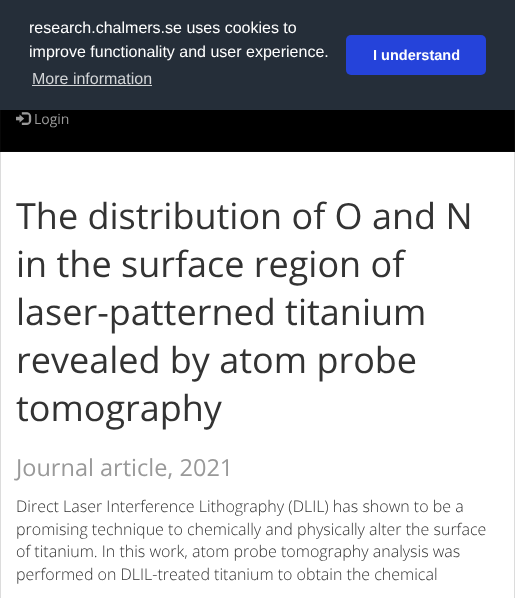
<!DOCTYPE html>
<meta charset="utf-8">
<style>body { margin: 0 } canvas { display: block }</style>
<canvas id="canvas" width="515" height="598"></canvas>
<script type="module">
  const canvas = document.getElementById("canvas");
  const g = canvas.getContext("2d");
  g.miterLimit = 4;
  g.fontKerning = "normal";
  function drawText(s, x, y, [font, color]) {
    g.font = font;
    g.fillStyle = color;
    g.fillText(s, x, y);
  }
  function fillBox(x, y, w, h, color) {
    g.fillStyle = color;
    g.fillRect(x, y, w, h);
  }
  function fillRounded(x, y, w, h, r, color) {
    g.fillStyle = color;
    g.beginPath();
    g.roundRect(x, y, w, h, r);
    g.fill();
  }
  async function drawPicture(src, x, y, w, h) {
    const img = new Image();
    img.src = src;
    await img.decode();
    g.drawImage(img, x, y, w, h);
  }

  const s1 = ["16px Liberation Sans", "#FFFFFF"];
  const s2 = ["16px Liberation Sans", "#D3D5D7"];
  const s3 = ["bold 14.5px Liberation Sans", "#FFFFFF"];
  const s4 = ["14px Open Sans", "#999999"];
  const s5 = ["36px Open Sans", "#333333"];
  const s6 = ["23.5px Open Sans", "#999999"];
  const s7 = ["300 16px Open Sans", "#333333"];

  fillBox(0, 0, 515, 598, "#FFFFFF");
  fillBox(1, 110, 513, 41, "#000000");
  g.strokeStyle = "#080808";
  g.strokeRect(0.5, 0.5, 514, 151);
  fillBox(0, 0, 515, 110, "#252E39");
  drawText("research.chalmers.se uses cookies to", 29, 33, s1);
  drawText("improve functionality and user experience.", 29, 57, s1);
  drawText("More information", 32, 84, s2);
  fillBox(32, 85, 120, 1, "#D3D5D7");
  fillRounded(346, 35, 140, 40, 5, "#2543DA");
  drawText("I understand", 373, 60, s3);
  await drawPicture("pic1.png", 16, 112, 16, 13);
  drawText("Login", 34, 124, s4);
  fillBox(514, 152, 1, 446, "#DCDCDC");
  fillBox(0, 152, 1, 446, "#DCDCDC");
  drawText("The distribution of O and N", 16, 229, s5);
  drawText("in the surface region of", 16, 277, s5);
  drawText("laser-patterned titanium", 16, 325, s5);
  drawText("revealed by atom probe", 16, 373, s5);
  drawText("tomography", 16, 421, s5);
  drawText("Journal article, 2021", 16, 476, s6);
  drawText("Direct Laser Interference Lithography (DLIL) has shown to be a", 16, 512, s7);
  drawText("promising technique to chemically and physically alter the surface", 16, 535, s7);
  drawText("of titanium. In this work, atom probe tomography analysis was", 16, 557, s7);
  drawText("performed on DLIL-treated titanium to obtain the chemical", 16, 580, s7);
</script>
